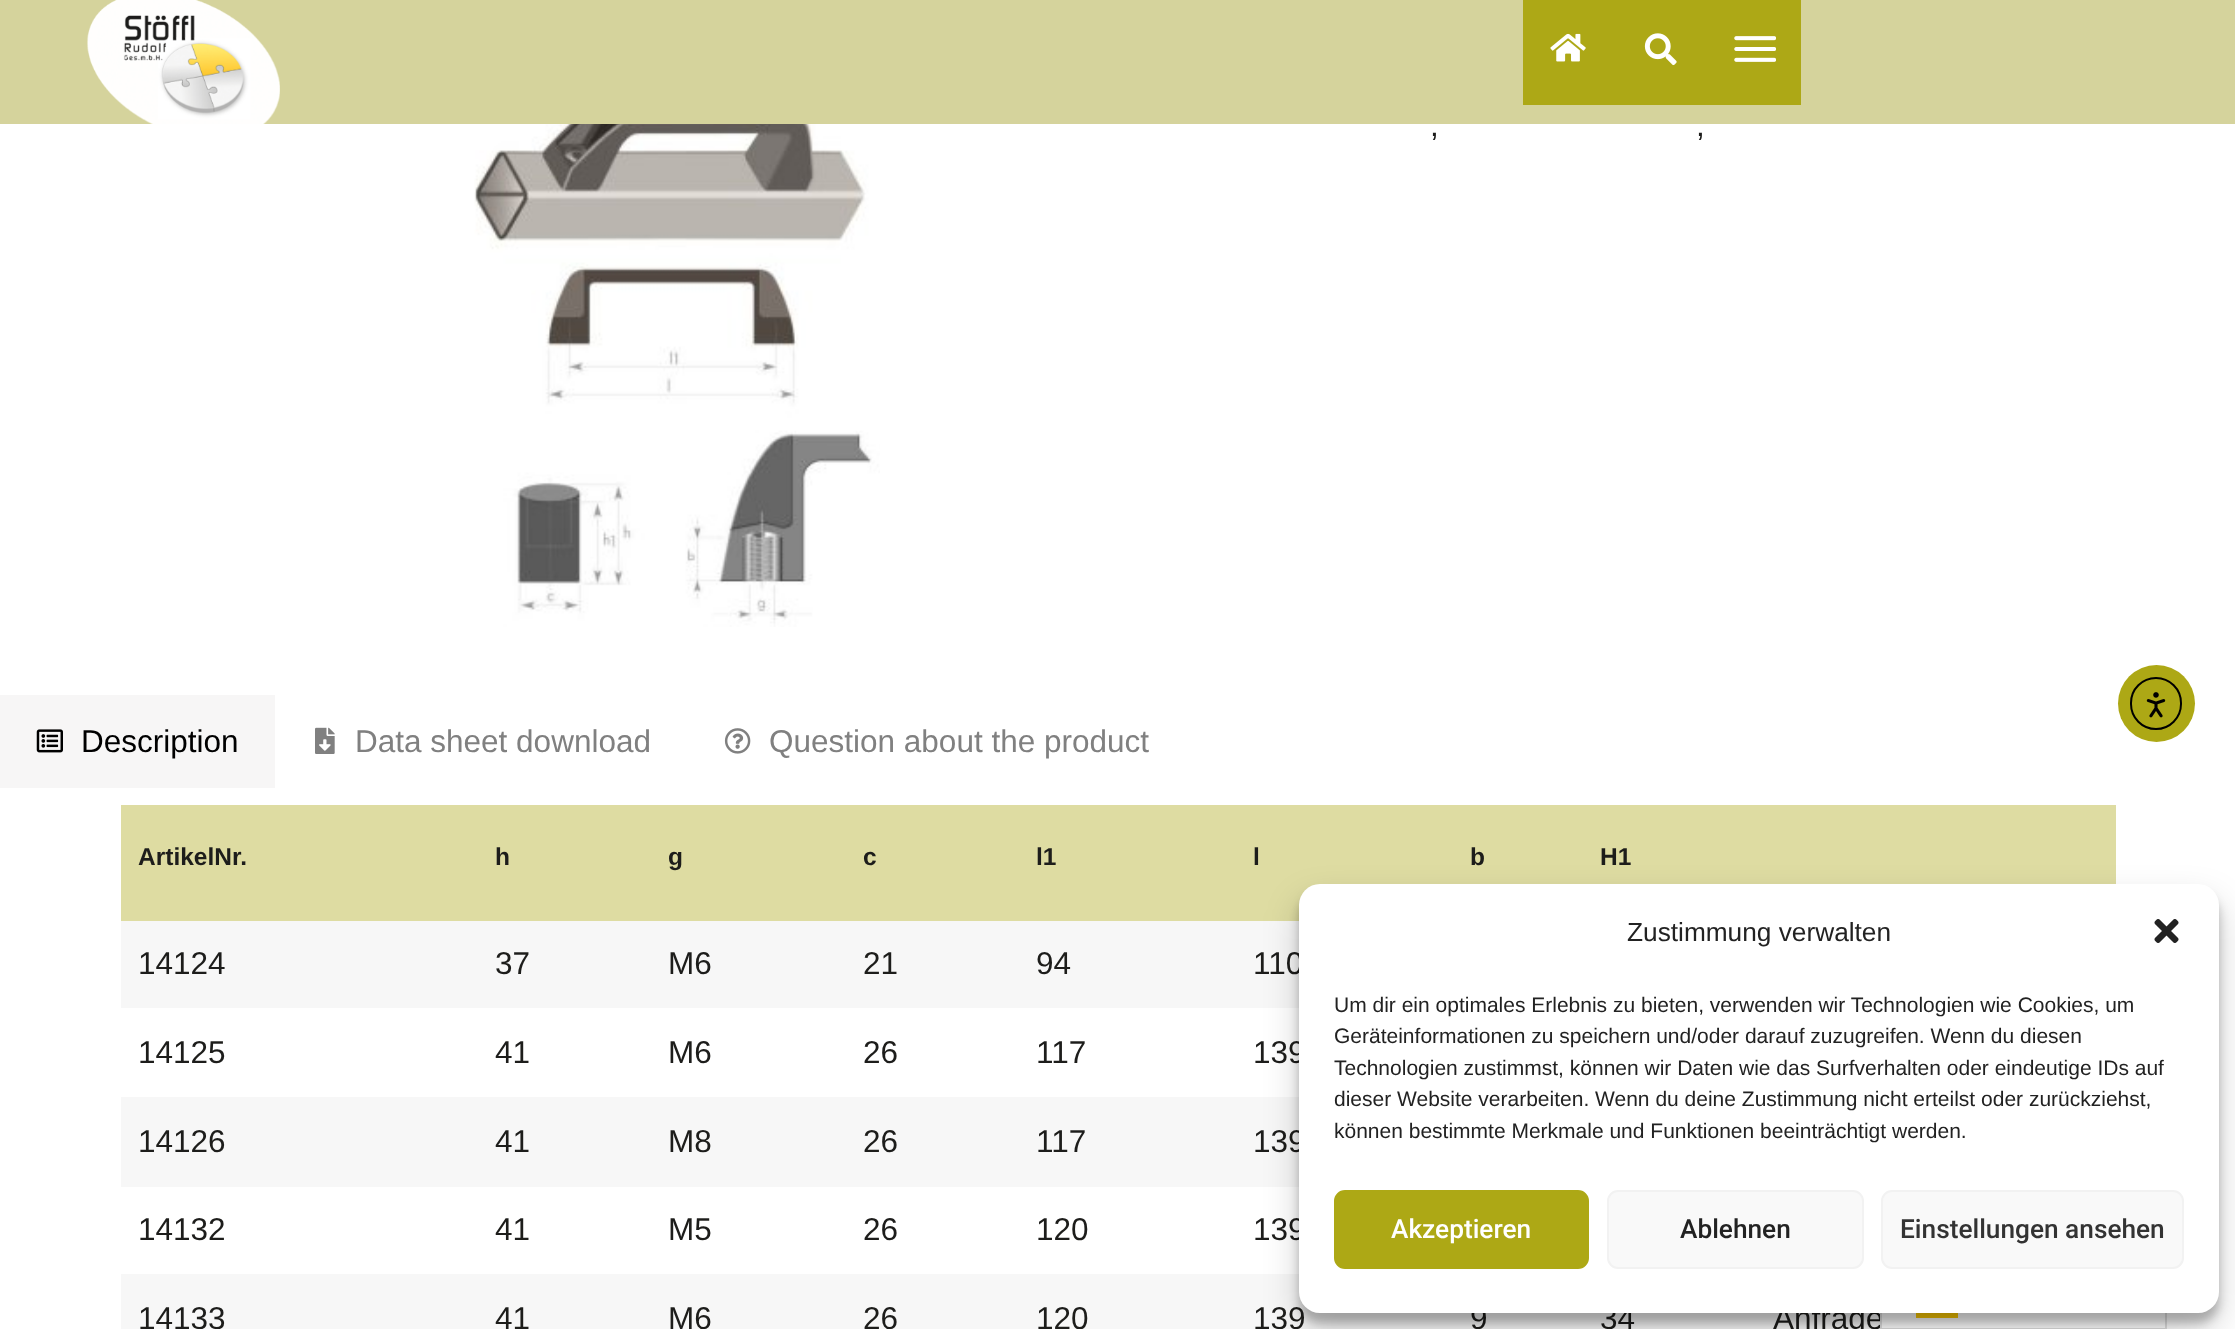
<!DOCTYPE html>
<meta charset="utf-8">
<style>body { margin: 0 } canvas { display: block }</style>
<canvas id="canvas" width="2235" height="1329"></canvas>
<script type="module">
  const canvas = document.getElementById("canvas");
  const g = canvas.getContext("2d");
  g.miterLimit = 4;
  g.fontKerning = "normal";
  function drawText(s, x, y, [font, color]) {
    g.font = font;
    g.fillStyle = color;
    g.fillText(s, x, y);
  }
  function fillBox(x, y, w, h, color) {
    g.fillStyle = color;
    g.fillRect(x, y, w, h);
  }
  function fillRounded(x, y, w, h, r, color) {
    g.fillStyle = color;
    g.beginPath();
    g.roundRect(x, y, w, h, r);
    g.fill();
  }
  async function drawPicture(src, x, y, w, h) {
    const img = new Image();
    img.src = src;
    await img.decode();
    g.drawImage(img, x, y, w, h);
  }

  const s1 = ["31.5px Liberation Sans", "#1D1D1B"];
  const s2 = ["31.5px Liberation Sans", "#000000"];
  const s3 = ["31.5px Liberation Sans", "#808080"];
  const s4 = ["bold 24.5px Liberation Sans", "#1D1D1B"];
  const s5 = ["26.25px Liberation Sans", "#222222"];
  const s6 = ["21px Liberation Sans", "#222222"];
  const s7 = ["500 26.25px Roboto", "#FFFFFF"];
  const s8 = ["500 26.25px Roboto", "#222222"];
  const s9 = ["500 26.25px Roboto", "#333333"];

  fillBox(0, 0, 2235, 1329, "#FFFFFF");
  fillBox(0, 0, 2235, 124, "#D5D39C");
  await drawPicture("pic1.png", 87, 0, 193, 124);
  fillBox(1523, 0, 278, 105, "#ADA816");
  await drawPicture("pic2.png", 1550, 33, 36, 29);
  await drawPicture("pic3.png", 1644, 33, 33, 33);
  await drawPicture("pic4.png", 1734, 36, 42, 26);
  await drawPicture("pic5.png", 474, 124, 406, 503);
  drawText(",", 1430, 136, s1);
  drawText(",", 1696, 136, s1);
  fillBox(0, 695, 275, 93, "#F7F6F6");
  await drawPicture("pic6.png", 36, 729, 27, 24);
  drawText("Description", 81, 752, s2);
  await drawPicture("pic7.png", 315, 727, 20, 27);
  drawText("Data sheet download", 355, 752, s3);
  await drawPicture("pic8.png", 724, 728, 27, 26);
  drawText("Question about the product", 769, 752, s3);
  fillBox(121, 805, 1332, 116, "#DEDCA2");
  drawText("ArtikelNr.", 138, 865, s4);
  drawText("h", 495, 865, s4);
  drawText("g", 668, 865, s4);
  drawText("c", 863, 865, s4);
  drawText("l1", 1036, 865, s4);
  drawText("l", 1253, 865, s4);
  fillBox(1453, 805, 663, 79, "#DEDCA2");
  drawText("b", 1470, 865, s4);
  drawText("H1", 1600, 865, s4);
  fillBox(121, 921, 1178, 87, "#F7F7F7");
  drawText("14124", 138, 974, s1);
  drawText("37", 495, 974, s1);
  drawText("M6", 668, 974, s1);
  drawText("21", 863, 974, s1);
  drawText("94", 1036, 974, s1);
  drawText("110", 1253, 974, s1);
  drawText("14125", 138, 1063, s1);
  drawText("41", 495, 1063, s1);
  drawText("M6", 668, 1063, s1);
  drawText("26", 863, 1063, s1);
  drawText("117", 1036, 1063, s1);
  drawText("139", 1253, 1063, s1);
  fillBox(121, 1097, 1178, 90, "#F7F7F7");
  drawText("14126", 138, 1152, s1);
  drawText("41", 495, 1152, s1);
  drawText("M8", 668, 1152, s1);
  drawText("26", 863, 1152, s1);
  drawText("117", 1036, 1152, s1);
  drawText("139", 1253, 1152, s1);
  drawText("14132", 138, 1240, s1);
  drawText("41", 495, 1240, s1);
  drawText("M5", 668, 1240, s1);
  drawText("26", 863, 1240, s1);
  drawText("120", 1036, 1240, s1);
  drawText("139", 1253, 1240, s1);
  fillBox(121, 1274, 1332, 55, "#F7F7F7");
  drawText("14133", 138, 1329, s1);
  drawText("41", 495, 1329, s1);
  drawText("M6", 668, 1329, s1);
  drawText("26", 863, 1329, s1);
  drawText("120", 1036, 1329, s1);
  drawText("139", 1253, 1329, s1);
  fillBox(1453, 1313, 427, 16, "#F7F7F7");
  drawText("9", 1470, 1329, s1);
  drawText("34", 1600, 1329, s1);
  drawText("Anfrage", 1773, 1329, s1);
  g.fillStyle = "#ADA815";
  g.beginPath();
  g.arc(2156.5, 703.5, 38.5, 0, Math.PI * 2);
  g.fill();
  g.beginPath();
  g.roundRect(2131, 678, 50, 51, 25);
  g.strokeStyle = "#000000";
  g.lineWidth = 2;
  g.stroke();
  await drawPicture("pic9.png", 2146, 692, 20, 26);
  fillBox(1882, 1318, 1, 4, "#FFFFFF");
  g.strokeStyle = "#E0E0E0";
  g.strokeRect(1881, 1263, 285, 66);
  fillBox(1916, 1313, 42, 5, "#FFCC00");
  g.fillStyle = "rgba(0, 0, 0, 0.23)";
  g.filter = "blur(5px)";
  g.beginPath();
  g.roundRect(1299, 894, 920, 429, 21);
  g.fill();
  g.filter = "none";
  g.fillStyle = "rgba(0, 0, 0, 0.19)";
  g.filter = "blur(17.5px)";
  g.beginPath();
  g.roundRect(1299, 901, 920, 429, 21);
  g.fill();
  g.filter = "none";
  fillRounded(1299, 884, 920, 429, 21, "#FFFFFF");
  drawText("Zustimmung verwalten", 1627, 941, s5);
  await drawPicture("pic10.png", 2154, 919, 25, 24);
  drawText("Um dir ein optimales Erlebnis zu bieten, verwenden wir Technologien wie Cookies, um", 1334, 1012, s6);
  drawText("Geräteinformationen zu speichern und/oder darauf zuzugreifen. Wenn du diesen", 1334, 1043, s6);
  drawText("Technologien zustimmst, können wir Daten wie das Surfverhalten oder eindeutige IDs auf", 1334, 1075, s6);
  drawText("dieser Website verarbeiten. Wenn du deine Zustimmung nicht erteilst oder zurückziehst,", 1334, 1106, s6);
  drawText("können bestimmte Merkmale und Funktionen beeinträchtigt werden.", 1334, 1138, s6);
  g.fillStyle = "#ADA815";
  g.beginPath();
  g.roundRect(1335, 1191, 253, 77, 10);
  g.fill();
  g.strokeStyle = "#ADA815";
  g.stroke();
  drawText("Akzeptieren", 1391, 1238, s7);
  g.fillStyle = "#F9F9F9";
  g.beginPath();
  g.roundRect(1608, 1191, 255, 77, 10);
  g.fill();
  g.strokeStyle = "#F2F2F2";
  g.stroke();
  drawText("Ablehnen", 1680, 1238, s8);
  g.fillStyle = "#F9F9F9";
  g.beginPath();
  g.roundRect(1882, 1191, 301, 77, 10);
  g.fill();
  g.stroke();
  drawText("Einstellungen ansehen", 1900, 1238, s9);
</script>
